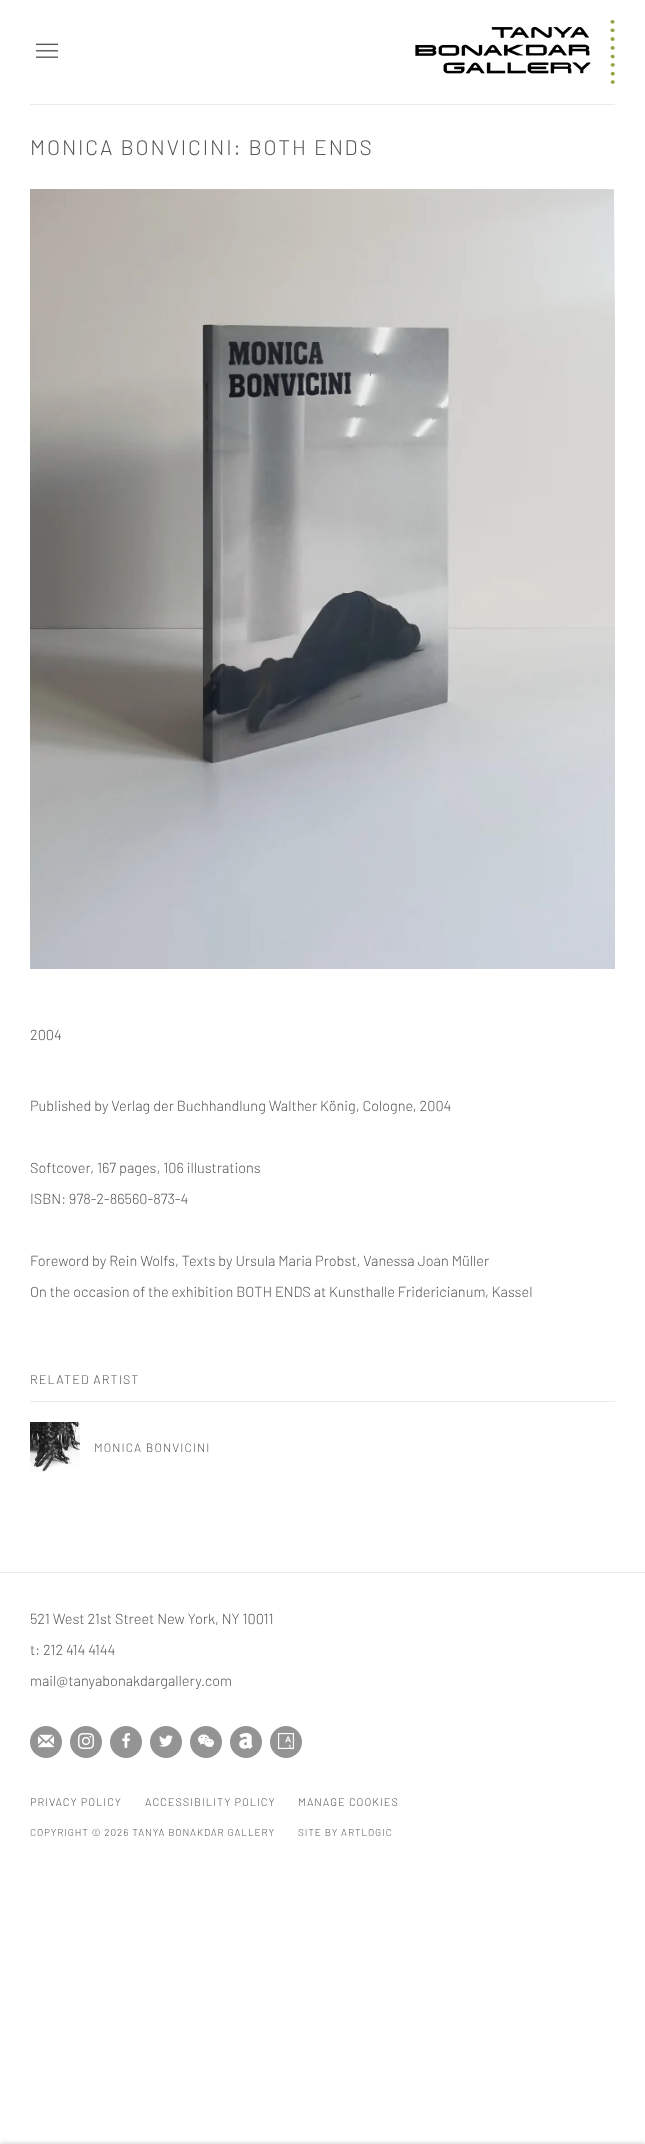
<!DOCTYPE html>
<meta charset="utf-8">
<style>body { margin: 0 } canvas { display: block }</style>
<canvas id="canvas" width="645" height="2144"></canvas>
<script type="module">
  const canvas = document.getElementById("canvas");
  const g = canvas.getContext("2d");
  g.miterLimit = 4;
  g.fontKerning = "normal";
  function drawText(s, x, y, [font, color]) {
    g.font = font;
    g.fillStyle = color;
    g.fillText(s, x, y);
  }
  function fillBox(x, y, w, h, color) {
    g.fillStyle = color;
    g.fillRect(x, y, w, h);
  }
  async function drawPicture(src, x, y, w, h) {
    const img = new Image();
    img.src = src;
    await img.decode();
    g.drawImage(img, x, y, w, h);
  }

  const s1 = ["300 21px Barlow", "#565656"];
  const s2 = ["300 14.5px Barlow", "#565656"];
  const s3 = ["300 12.5px Barlow", "#565656"];
  const s4 = ["300 12px Barlow", "#565656"];
  const s5 = ["300 11px Barlow", "#565656"];
  const s6 = ["300 10px Barlow", "#565656"];

  fillBox(0, 0, 645, 2144, "#FFFFFF");
  fillBox(30, 104, 585, 1, "#EBEBEB");
  await drawPicture("pic1.png", 36, 43, 22, 15);
  await drawPicture("pic2.png", 415, 20, 200, 64);
  g.letterSpacing = "1.9px";
  drawText("MONICA BONVICINI: BOTH ENDS", 30, 155, s1);
  await drawPicture("pic3.png", 30, 189, 585, 780);
  g.letterSpacing = "0px";
  drawText("2004", 30, 1040, s2);
  drawText("Published by Verlag der Buchhandlung Walther König, Cologne, 2004", 30, 1111, s2);
  drawText("Softcover, 167 pages, 106 illustrations", 30, 1173, s2);
  drawText("ISBN: 978-2-86560-873-4", 30, 1204, s2);
  drawText("Foreword by Rein Wolfs, Texts by Ursula Maria Probst, Vanessa Joan Müller", 30, 1266, s2);
  drawText("On the occasion of the exhibition BOTH ENDS at Kunsthalle Fridericianum, Kassel", 30, 1297, s2);
  fillBox(30, 1401, 585, 1, "#EBEBEB");
  g.letterSpacing = "1.1px";
  drawText("RELATED ARTIST", 30, 1384, s3);
  await drawPicture("pic4.png", 30, 1422, 50, 50);
  drawText("MONICA BONVICINI", 94, 1452, s4);
  fillBox(0, 1572, 645, 1, "#EBEBEB");
  g.letterSpacing = "0px";
  drawText("521 West 21st Street New York, NY 10011", 30, 1624, s2);
  drawText("t: 212 414 4144", 30, 1655, s2);
  drawText("mail@tanyabonakdargallery.com", 30, 1686, s2);
  g.fillStyle = "#949494";
  g.beginPath();
  g.arc(46, 1742, 16, 0, Math.PI * 2);
  g.fill();
  await drawPicture("pic5.png", 38, 1734, 16, 14);
  g.beginPath();
  g.arc(86, 1742, 16, 0, Math.PI * 2);
  g.fill();
  await drawPicture("pic6.png", 78, 1733, 16, 16);
  g.beginPath();
  g.arc(126, 1742, 16, 0, Math.PI * 2);
  g.fill();
  await drawPicture("pic7.png", 122, 1733, 8, 15);
  g.beginPath();
  g.arc(166, 1742, 16, 0, Math.PI * 2);
  g.fill();
  await drawPicture("pic8.png", 159, 1735, 14, 12);
  g.beginPath();
  g.arc(206, 1742, 16, 0, Math.PI * 2);
  g.fill();
  await drawPicture("pic9.png", 198, 1734, 16, 14);
  g.beginPath();
  g.arc(246, 1742, 16, 0, Math.PI * 2);
  g.fill();
  await drawPicture("pic10.png", 239, 1733, 14, 16);
  g.beginPath();
  g.arc(286, 1742, 16, 0, Math.PI * 2);
  g.fill();
  await drawPicture("pic11.png", 278, 1733, 16, 16);
  g.letterSpacing = "1px";
  drawText("PRIVACY POLICY", 30, 1806, s5);
  drawText("ACCESSIBILITY POLICY", 145, 1806, s5);
  drawText("MANAGE COOKIES", 298, 1806, s5);
  g.letterSpacing = "0.9px";
  drawText("COPYRIGHT © 2026 TANYA BONAKDAR GALLERY", 30, 1836, s6);
  drawText("SITE BY ARTLOGIC", 298, 1836, s6);
  g.fillStyle = "rgba(0, 0, 0, 0.23)";
  g.filter = "blur(2.5px)";
  g.beginPath();
  g.rect(0, 2144, 645, 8);
  g.fill();
  g.filter = "none";
</script>
